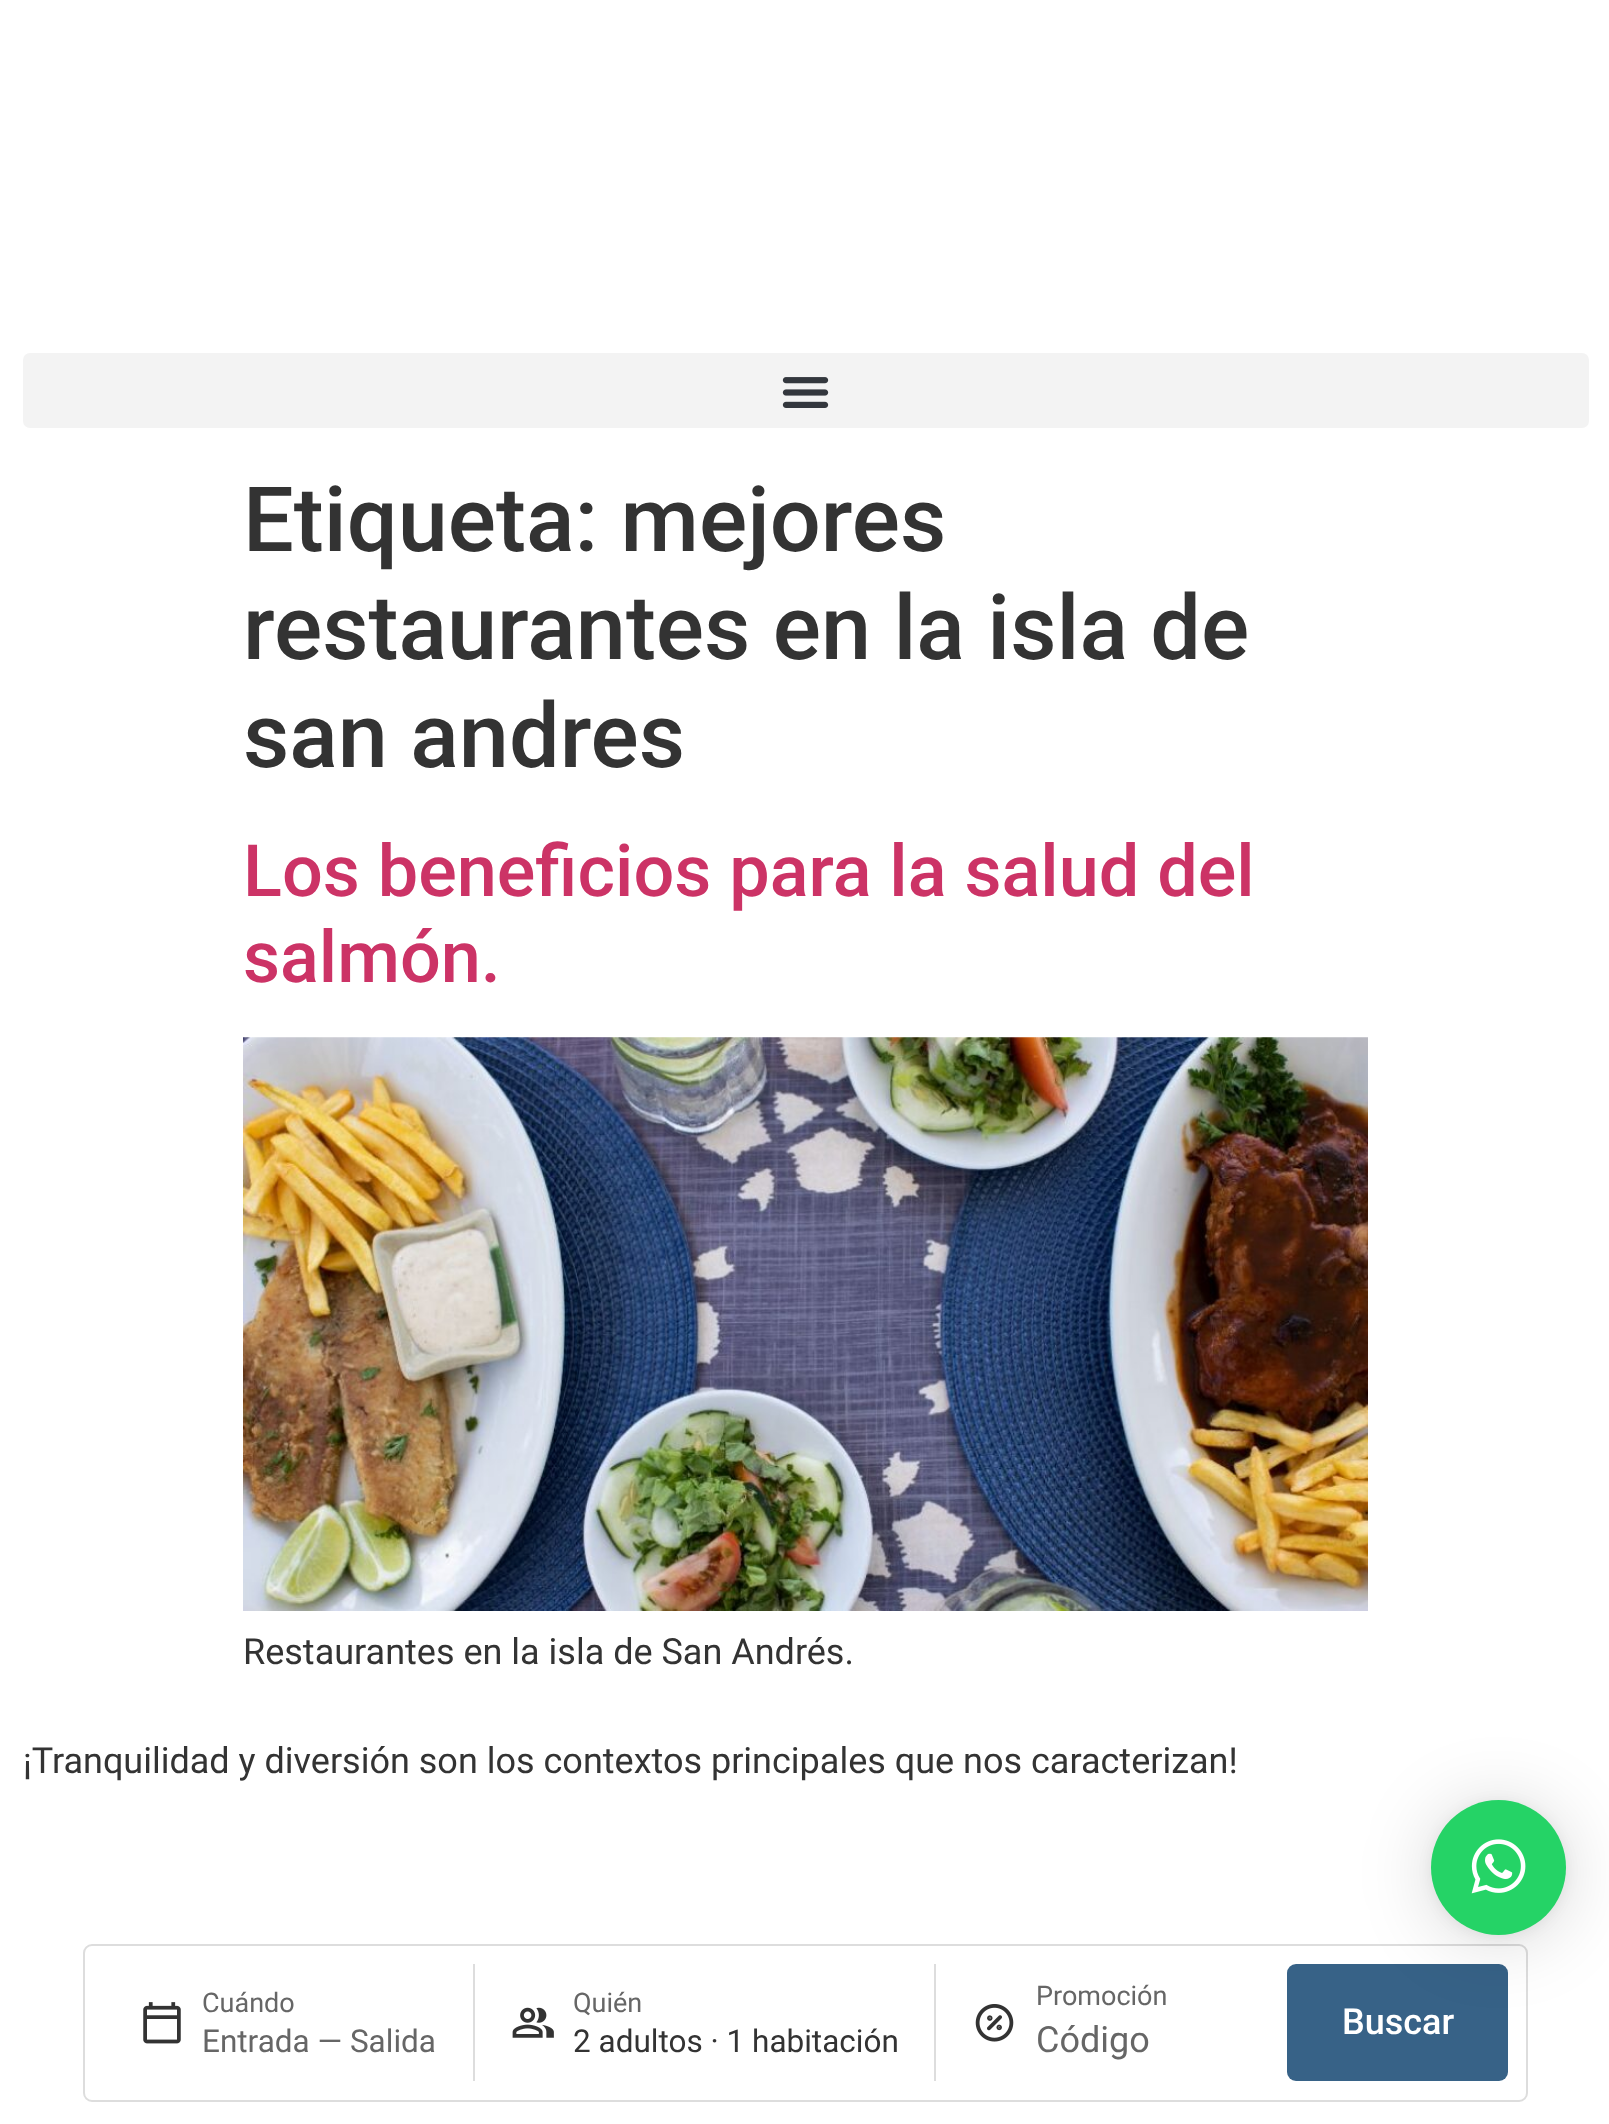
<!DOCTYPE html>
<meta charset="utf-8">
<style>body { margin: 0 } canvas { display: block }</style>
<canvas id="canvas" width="1609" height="2124"></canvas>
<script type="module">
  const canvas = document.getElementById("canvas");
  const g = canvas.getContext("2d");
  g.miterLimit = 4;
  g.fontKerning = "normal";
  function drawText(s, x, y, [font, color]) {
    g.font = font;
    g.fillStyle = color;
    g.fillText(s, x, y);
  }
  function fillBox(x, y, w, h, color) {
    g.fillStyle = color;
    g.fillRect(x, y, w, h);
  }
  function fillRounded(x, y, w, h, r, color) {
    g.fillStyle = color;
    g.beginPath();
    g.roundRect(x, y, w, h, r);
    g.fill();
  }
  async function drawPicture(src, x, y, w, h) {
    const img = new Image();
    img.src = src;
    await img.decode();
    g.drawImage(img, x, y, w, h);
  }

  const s1 = ["500 90px Roboto", "#333333"];
  const s2 = ["500 72px Roboto", "#CC3366"];
  const s3 = ["36px Roboto", "#333333"];
  const s4 = ["27px Roboto", "#666666"];
  const s5 = ["31.5px Roboto", "#666666"];
  const s6 = ["31.5px Roboto", "#333333"];
  const s7 = ["36px Roboto", "#666666"];
  const s8 = ["500 36px Roboto", "#FFFFFF"];

  fillBox(0, 0, 1609, 2124, "#FFFFFF");
  fillRounded(23, 353, 1566, 75, 7, "#F3F3F3");
  await drawPicture("pic1.png", 782, 377, 47, 31);
  drawText("Etiqueta: mejores", 243, 551, s1);
  drawText("restaurantes en la isla de", 243, 659, s1);
  drawText("san andres", 243, 767, s1);
  drawText("Los beneficios para la salud del", 243, 896, s2);
  drawText("salmón.", 243, 982, s2);
  await drawPicture("pic2.png", 243, 1037, 1125, 574);
  drawText("Restaurantes en la isla de San Andrés.", 243, 1664, s3);
  drawText("¡Tranquilidad y diversión son los contextos principales que nos caracterizan!", 23, 1773, s3);
  g.beginPath();
  g.roundRect(84, 1945, 1443, 156, 8);
  g.strokeStyle = "#DDDDDD";
  g.lineWidth = 2;
  g.stroke();
  fillRounded(1287, 1964, 221, 117, 9, "#376287");
  g.fillStyle = "rgba(0, 0, 0, 0.16)";
  g.filter = "blur(36px)";
  g.beginPath();
  g.roundRect(1431, 1805, 135, 135, 67.5);
  g.fill();
  g.filter = "none";
  g.fillStyle = "rgba(0, 0, 0, 0.06)";
  g.filter = "blur(7px)";
  g.beginPath();
  g.roundRect(1431, 1802, 135, 135, 67.5);
  g.fill();
  g.filter = "none";
  g.fillStyle = "#25D366";
  g.beginPath();
  g.arc(1498.5, 1867.5, 67.5, 0, Math.PI * 2);
  g.fill();
  await drawPicture("pic3.png", 1471, 1839, 55, 55);
  await drawPicture("pic4.png", 143, 2002, 38, 42);
  drawText("Cuándo", 202, 2012, s4);
  drawText("Entrada — Salida", 202, 2052, s5);
  fillBox(473, 1964, 2, 117, "#DDDDDD");
  await drawPicture("pic5.png", 512, 2007, 42, 31);
  drawText("Quién", 573, 2012, s4);
  drawText("2 adultos · 1 habitación", 573, 2052, s6);
  fillBox(934, 1964, 2, 117, "#DDDDDD");
  await drawPicture("pic6.png", 975, 2004, 39, 38);
  drawText("Promoción", 1036, 2005, s4);
  drawText("Código", 1036, 2052, s7);
  drawText("Buscar", 1342, 2034, s8);
</script>
